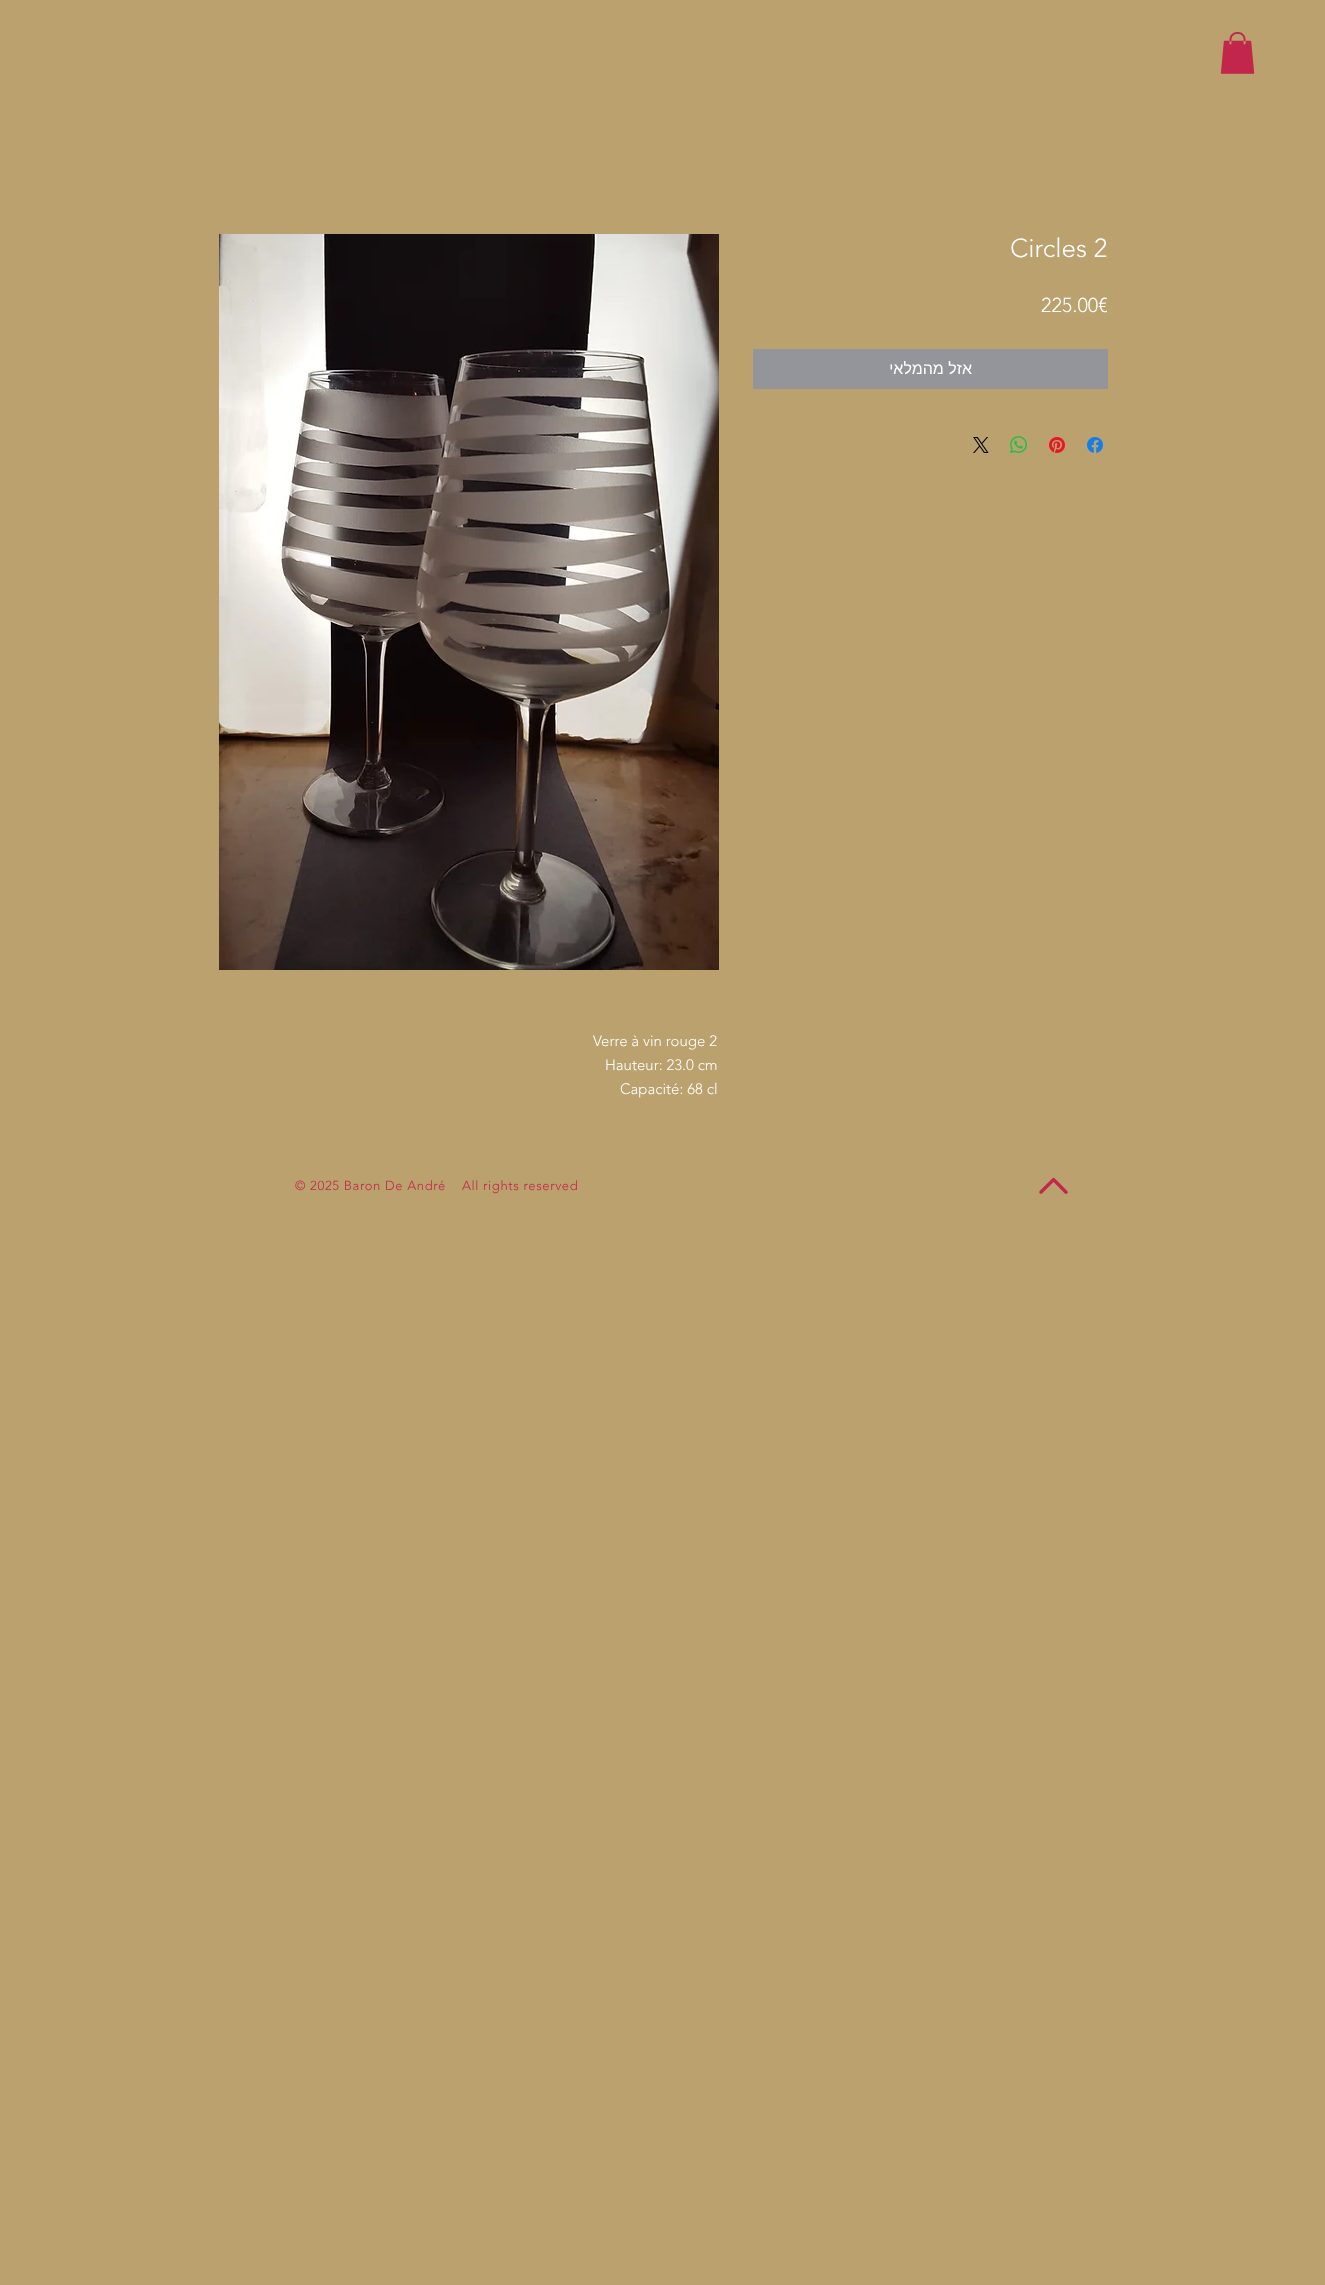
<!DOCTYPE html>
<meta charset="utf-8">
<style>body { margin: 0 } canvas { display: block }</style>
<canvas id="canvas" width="1325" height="2285"></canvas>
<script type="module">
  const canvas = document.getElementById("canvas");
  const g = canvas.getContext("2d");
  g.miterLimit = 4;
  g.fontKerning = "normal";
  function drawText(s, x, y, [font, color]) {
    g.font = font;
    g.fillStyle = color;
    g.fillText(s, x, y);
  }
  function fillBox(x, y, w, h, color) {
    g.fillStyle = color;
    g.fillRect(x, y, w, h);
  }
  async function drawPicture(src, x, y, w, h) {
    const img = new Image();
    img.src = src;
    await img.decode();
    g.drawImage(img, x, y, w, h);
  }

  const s1 = ["300 26px 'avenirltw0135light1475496'", "#FFFFFE"];
  const s2 = ["300 20px 'avenirltw0135light1475496'", "#FFFFFE"];
  const s3 = ["16px Liberation Sans", "#FFFFFE"];
  const s4 = ["300 15px 'avenirltw0135light1475496'", "#FFFFFE"];
  const s5 = ["300 13px 'avenirltw0135light1475496'", "#C2274B"];

  fillBox(0, 0, 1325, 2285, "#BAA16E");
  await drawPicture("pic1.png", 1220, 32, 35, 42);
  drawText("Circles 2", 1010, 257, s1);
  drawText("225.00€", 1041, 312, s2);
  fillBox(753, 349, 355, 40, "#94949B");
  g.direction = "rtl";
  drawText("אזל מהמלאי", 972, 374, s3);
  await drawPicture("pic2.png", 973, 437, 16, 16);
  await drawPicture("pic3.png", 1010, 436, 17, 17);
  await drawPicture("pic4.png", 1049, 437, 16, 16);
  await drawPicture("pic5.png", 1087, 437, 16, 16);
  await drawPicture("pic6.png", 219, 234, 500, 736);
  g.direction = "ltr";
  drawText("Verre à vin rouge 2", 593, 1046, s4);
  drawText("Hauteur: 23.0 cm", 605, 1070, s4);
  drawText("Capacité: 68 cl", 620, 1094, s4);
  g.letterSpacing = "0.65px";
  drawText("© 2025 Baron De André    All rights reserved", 295, 1190, s5);
  await drawPicture("pic7.png", 1039, 1177, 29, 17);
</script>
